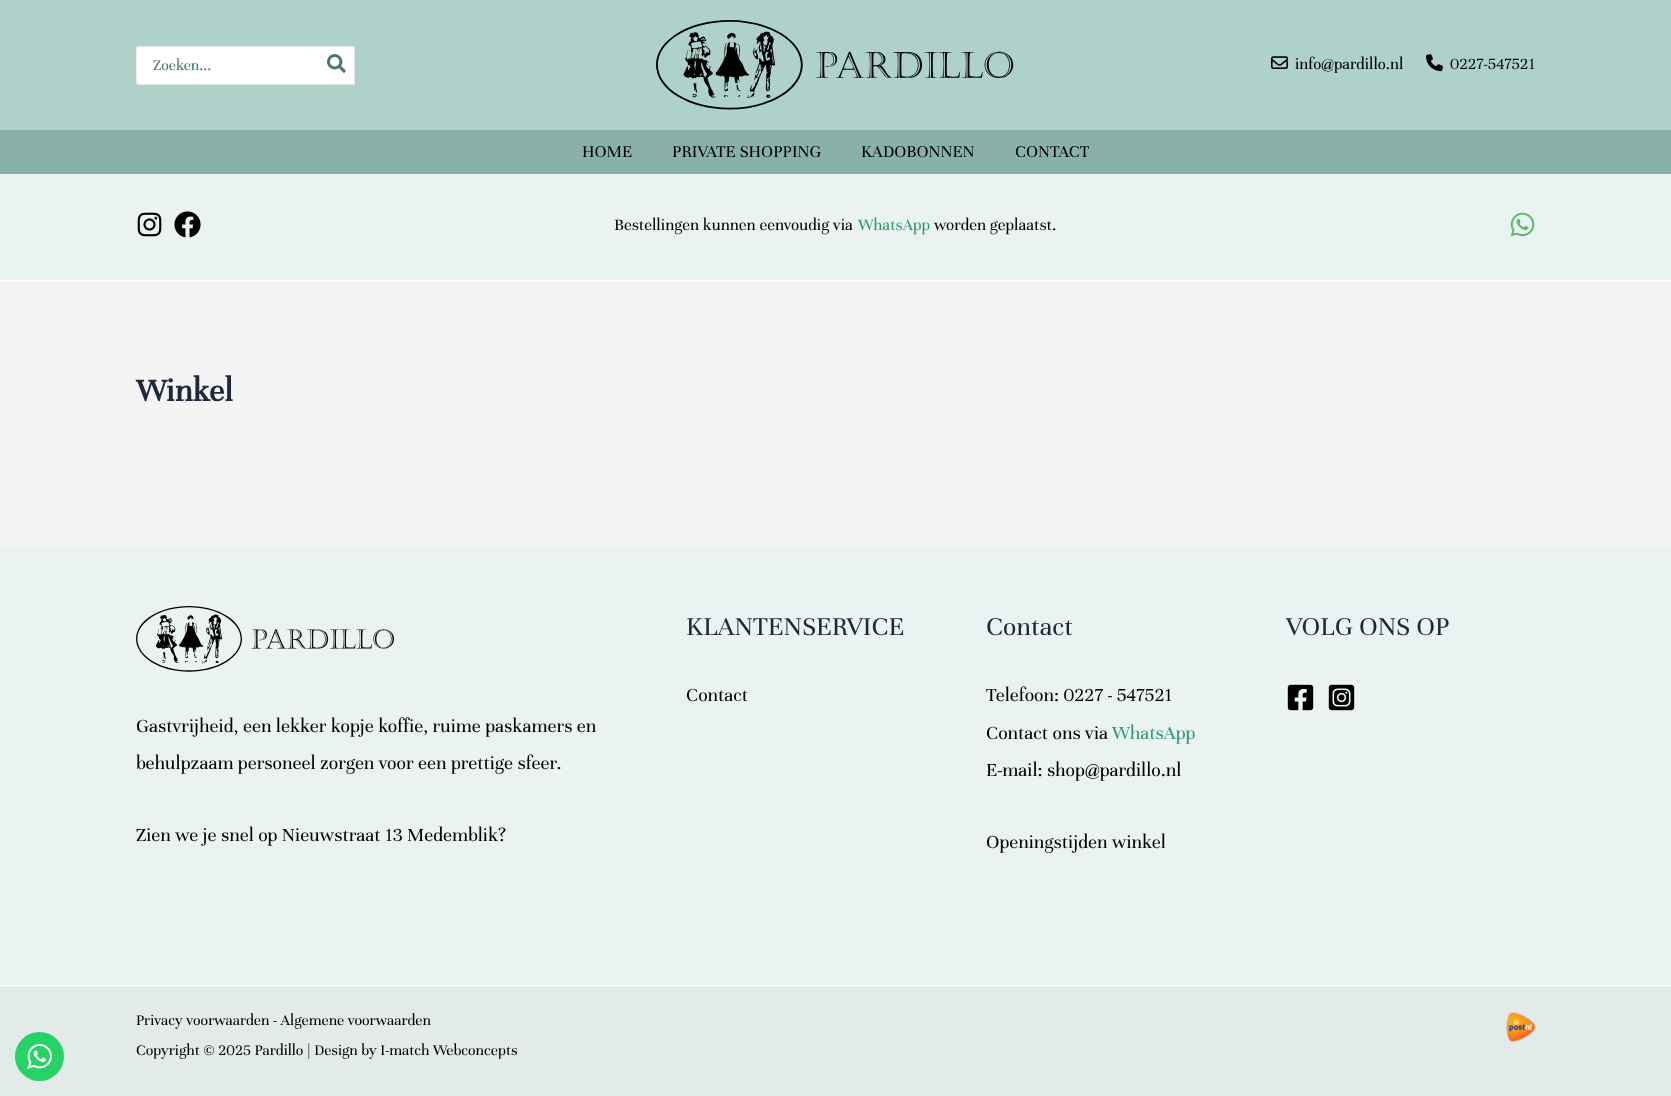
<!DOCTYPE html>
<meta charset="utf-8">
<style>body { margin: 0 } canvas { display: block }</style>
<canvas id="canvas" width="1671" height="1096"></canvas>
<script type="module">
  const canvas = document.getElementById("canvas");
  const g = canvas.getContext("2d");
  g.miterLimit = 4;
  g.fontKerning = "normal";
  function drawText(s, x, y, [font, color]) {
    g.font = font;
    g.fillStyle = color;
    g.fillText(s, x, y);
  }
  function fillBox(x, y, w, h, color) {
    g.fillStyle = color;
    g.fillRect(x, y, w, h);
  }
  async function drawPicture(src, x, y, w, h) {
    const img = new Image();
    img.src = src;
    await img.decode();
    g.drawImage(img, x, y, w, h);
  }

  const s1 = ["16px Unna", "#49786F"];
  const s2 = ["17px Unna", "#000000"];
  const s3 = ["18px Unna", "#000000"];
  const s4 = ["17.3px Unna", "#000000"];
  const s5 = ["17.3px Unna", "#339966"];
  const s6 = ["bold 34px Unna", "#1E293B"];
  const s7 = ["28px Unna", "#1E293B"];
  const s8 = ["20px Unna", "#000000"];
  const s9 = ["20px Unna", "#339966"];
  const s10 = ["16px Unna", "#000000"];

  fillBox(0, 0, 1671, 1096, "#F4F4F4");
  fillBox(0, 986, 1671, 110, "#E2EBEA");
  g.fillStyle = "#25D366";
  g.beginPath();
  g.arc(39.5, 1056.5, 24.5, 0, Math.PI * 2);
  g.fill();
  await drawPicture("pic1.png", 27, 1044, 25, 25);
  fillBox(0, 0, 1671, 130, "#AED1CA");
  g.fillStyle = "#FFFFFF";
  g.beginPath();
  g.roundRect(136.5, 46.5, 218, 38, 1.5);
  g.fill();
  g.strokeStyle = "#E7E7E7";
  g.stroke();
  drawText("Zoeken...", 153, 70, s1);
  await drawPicture("pic2.png", 327, 54, 19, 19);
  await drawPicture("pic3.png", 656, 20, 358, 90);
  await drawPicture("pic4.png", 1271, 56, 17, 13);
  drawText("info@pardillo.nl", 1295, 69, s2);
  await drawPicture("pic5.png", 1426, 54, 17, 18);
  drawText("0227-547521", 1450, 69, s2);
  fillBox(0, 130, 1671, 44, "#89B1A9");
  drawText("HOME", 582, 157, s3);
  drawText("PRIVATE SHOPPING", 672, 157, s3);
  drawText("KADOBONNEN", 861, 157, s3);
  drawText("CONTACT", 1015, 157, s3);
  fillBox(0, 174, 1671, 106, "#EAF3F1");
  fillBox(0, 280, 1671, 1, "#FFFFFF");
  await drawPicture("pic6.png", 137, 212, 25, 25);
  await drawPicture("pic7.png", 174, 211, 27, 27);
  drawText("Bestellingen kunnen eenvoudig via", 614, 230, s4);
  drawText("WhatsApp", 858, 230, s5);
  drawText("worden geplaatst.", 934, 230, s4);
  await drawPicture("pic8.png", 1510, 212, 25, 25);
  drawText("Winkel", 136, 401, s6);
  fillBox(0, 546, 1671, 439, "#EAF3F1");
  drawText("KLANTENSERVICE", 686, 635, s7);
  drawText("Contact", 686, 701, s8);
  drawText("Contact", 986, 635, s7);
  drawText("Telefoon: 0227 - 547521", 986, 701, s8);
  drawText("Contact ons via", 986, 739, s8);
  drawText("WhatsApp", 1112, 739, s9);
  drawText("E-mail: shop@pardillo.nl", 986, 776, s8);
  drawText("Openingstijden winkel", 986, 848, s8);
  drawText("VOLG ONS OP", 1286, 635, s7);
  await drawPicture("pic9.png", 1287, 684, 27, 27);
  await drawPicture("pic10.png", 1328, 684, 27, 27);
  await drawPicture("pic11.png", 136, 606, 258, 66);
  drawText("Gastvrijheid, een lekker kopje koffie, ruime paskamers en", 136, 732, s8);
  drawText("behulpzaam personeel zorgen voor een prettige sfeer.", 136, 769, s8);
  drawText("Zien we je snel op Nieuwstraat 13 Medemblik?", 136, 841, s8);
  fillBox(0, 985, 1671, 1, "#FFFFFF");
  drawText("Privacy voorwaarden - Algemene voorwaarden", 136, 1025, s10);
  drawText("Copyright © 2025 Pardillo | Design by I-match Webconcepts", 136, 1055, s10);
  await drawPicture("pic12.png", 1506, 1012, 30, 30);
</script>
